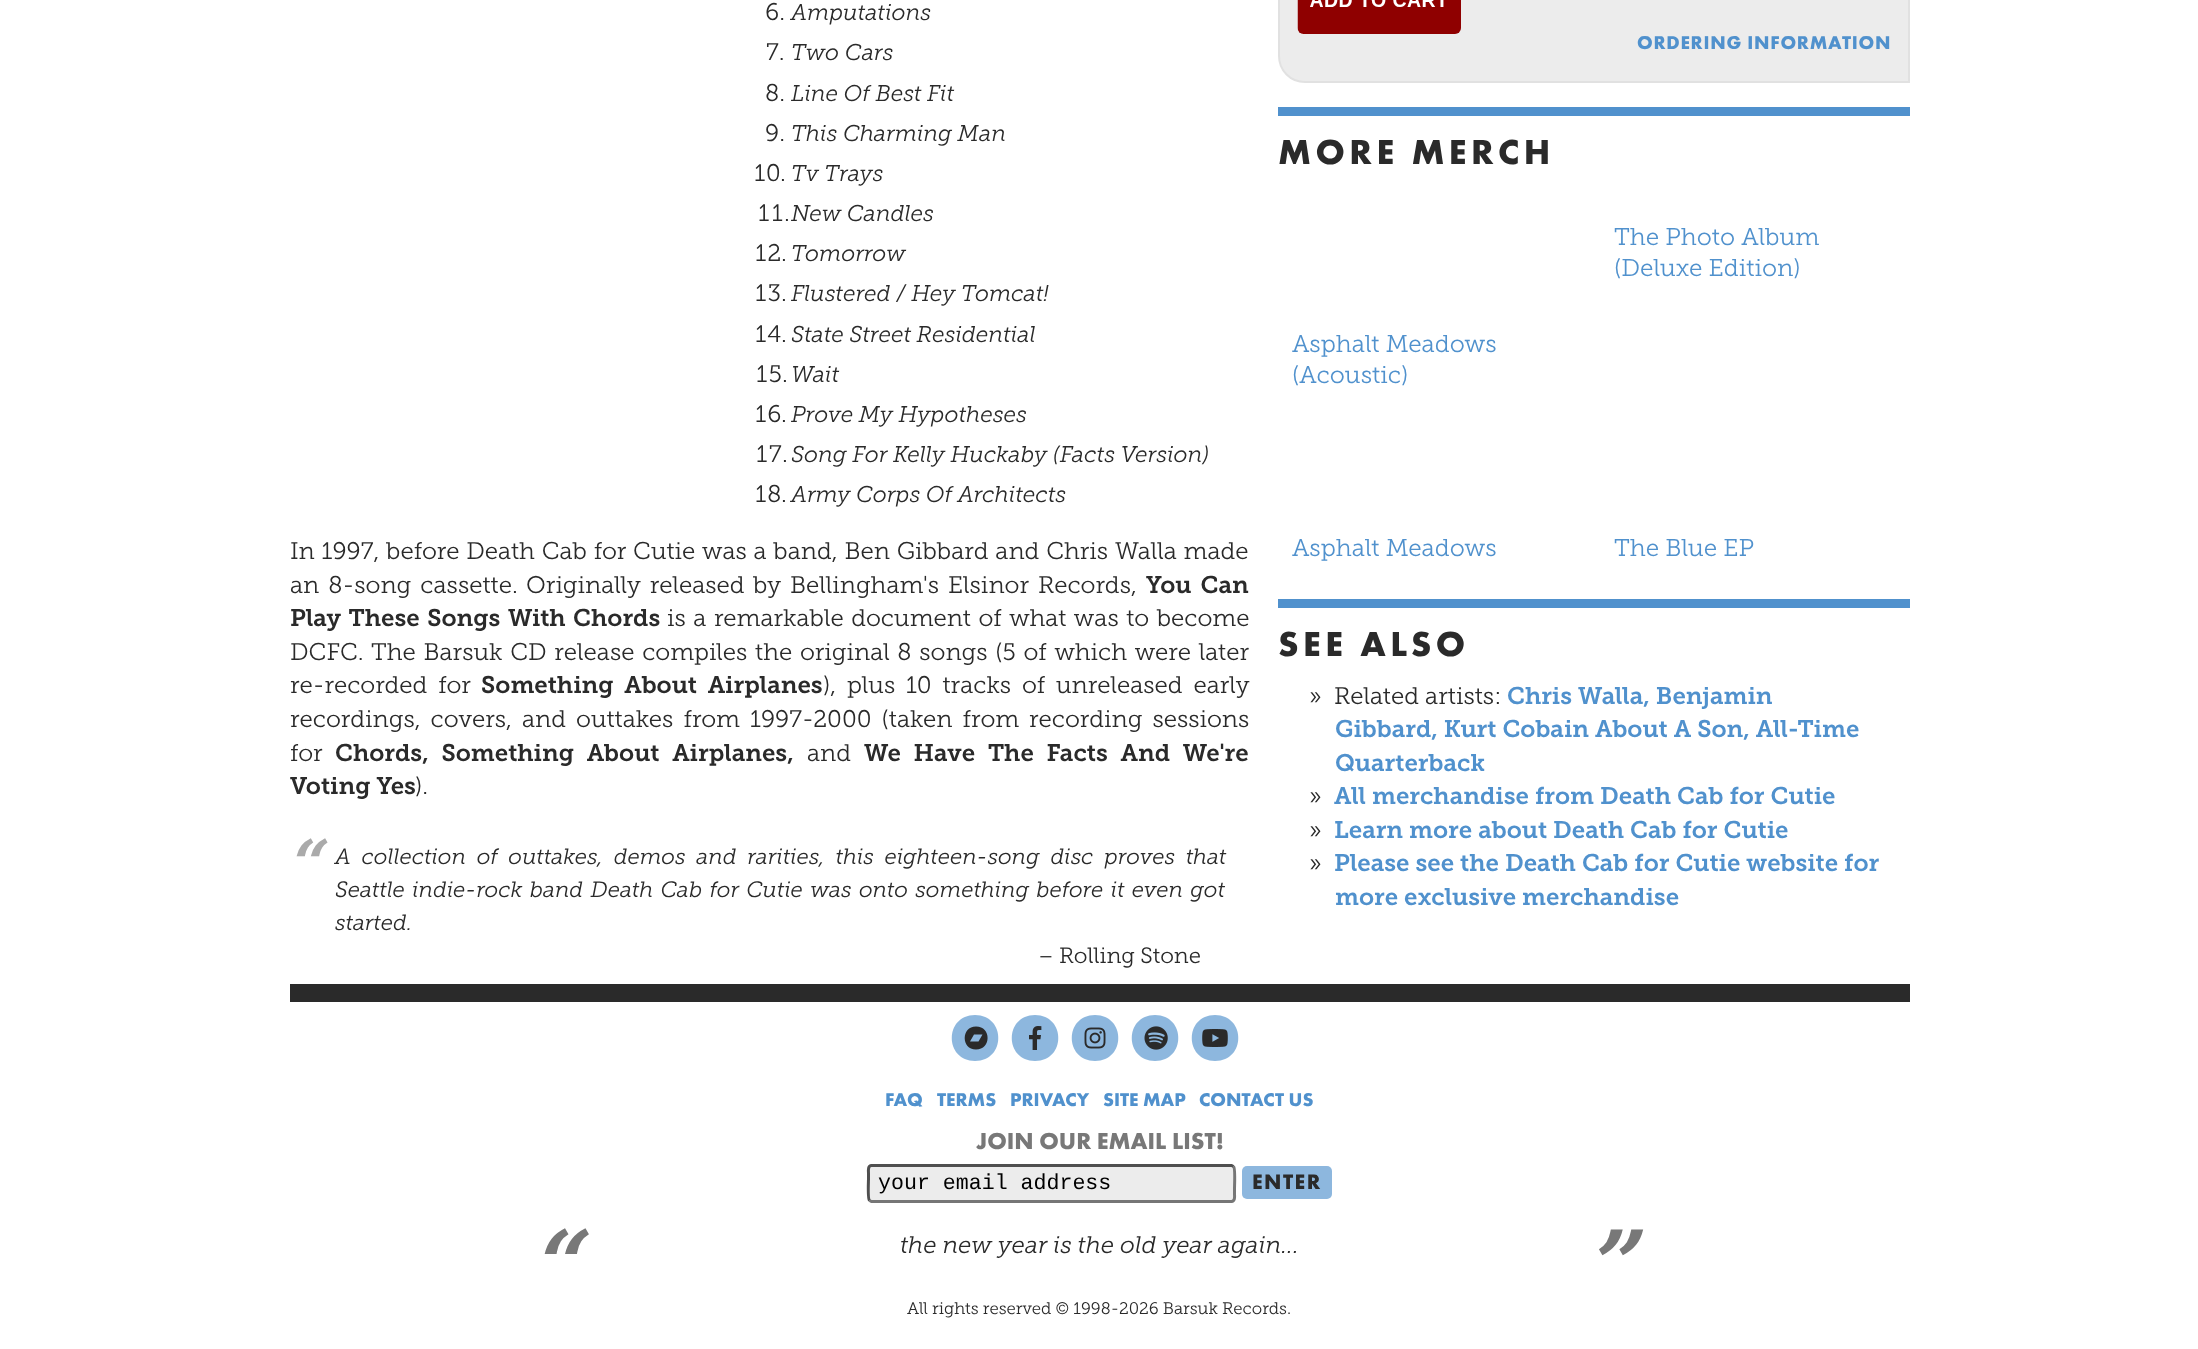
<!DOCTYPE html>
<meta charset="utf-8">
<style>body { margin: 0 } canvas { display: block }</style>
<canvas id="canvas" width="2198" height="1349"></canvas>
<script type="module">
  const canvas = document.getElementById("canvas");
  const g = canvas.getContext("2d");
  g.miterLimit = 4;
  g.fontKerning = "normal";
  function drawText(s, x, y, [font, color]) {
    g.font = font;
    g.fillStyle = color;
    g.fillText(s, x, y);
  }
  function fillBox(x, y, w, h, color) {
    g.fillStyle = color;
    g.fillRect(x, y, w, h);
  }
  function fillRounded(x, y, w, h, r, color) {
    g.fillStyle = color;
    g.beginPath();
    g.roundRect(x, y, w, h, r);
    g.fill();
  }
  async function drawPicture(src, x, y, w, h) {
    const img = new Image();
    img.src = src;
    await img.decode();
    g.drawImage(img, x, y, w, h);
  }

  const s1 = ["300 24px 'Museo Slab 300'", "#2A2A2A"];
  const s2 = ["italic 300 22.6px 'Museo Slab 300'", "#2A2A2A"];
  const s3 = ["300 24px 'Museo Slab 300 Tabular'", "#2A2A2A"];
  const s4 = ["600 24px 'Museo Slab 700'", "#2A2A2A"];
  const s5 = ["italic bold 63px DejaVu Serif", "#AAAAAA"];
  const s6 = ["italic 300 22.1px 'Museo Slab 300'", "#2A2A2A"];
  const s7 = ["300 22.1px 'Museo Slab 300'", "#2A2A2A"];
  const s8 = ["bold 19.25px Futura PT", "#5091CD"];
  const s9 = ["bold 36px Futura PT", "#2A2A2A"];
  const s10 = ["300 24.25px 'Museo Slab 300'", "#5091CD"];
  const s11 = ["600 24px 'Museo Slab 700'", "#5091CD"];
  const s12 = ["bold 24px Futura PT", "#787878"];
  const s13 = ["21.6px Liberation Mono", "#000000"];
  const s14 = ["bold 21.6px Futura PT", "#2A2A2A"];
  const s15 = ["italic bold 90px DejaVu Serif", "#787878"];
  const s16 = ["italic 300 24px 'Museo Slab 300'", "#2A2A2A"];
  const s17 = ["300 16.75px 'Museo Slab 300'", "#2A2A2A"];

  fillBox(0, 0, 2198, 1349, "#FFFFFF");
  drawText("6.", 765, 20, s1);
  drawText("Amputations", 791, 20, s2);
  drawText("7.", 766, 60, s1);
  drawText("Two Cars", 791, 60, s2);
  drawText("8.", 765, 101, s1);
  drawText("Line Of Best Fit", 791, 101, s2);
  drawText("9.", 765, 141, s1);
  drawText("This Charming Man", 791, 141, s2);
  drawText("10.", 753, 181, s3);
  drawText("Tv Trays", 791, 181, s2);
  drawText("11.", 757, 221, s3);
  drawText("New Candles", 791, 221, s2);
  drawText("12.", 754, 261, s3);
  drawText("Tomorrow", 791, 261, s2);
  drawText("13.", 754, 301, s3);
  drawText("Flustered / Hey Tomcat!", 791, 301, s2);
  drawText("14.", 754, 342, s3);
  drawText("State Street Residential", 791, 342, s2);
  drawText("15.", 755, 382, s3);
  drawText("Wait", 791, 382, s2);
  drawText("16.", 754, 422, s3);
  drawText("Prove My Hypotheses", 791, 422, s2);
  drawText("17.", 755, 462, s3);
  drawText("Song For Kelly Huckaby (Facts Version)", 791, 462, s2);
  drawText("18.", 754, 502, s3);
  drawText("Army Corps Of Architects", 791, 502, s2);
  g.wordSpacing = "0.75px";
  drawText("In 1997, before Death Cab for Cutie was a band, Ben Gibbard and Chris Walla made", 290, 559, s1);
  g.wordSpacing = "3px";
  drawText("an 8-song cassette.", 290, 593, s1);
  drawText("Originally released", 526, 593, s1);
  drawText("by Bellingham's Elsinor Records,", 753, 593, s1);
  drawText("You Can", 1146, 593, s4);
  g.wordSpacing = "1.5px";
  drawText("Play These Songs With Chords", 290, 626, s4);
  drawText("is a remarkable document of what was to become", 667, 626, s1);
  g.wordSpacing = "0px";
  drawText("DCFC.", 290, 660, s1);
  g.wordSpacing = "1.7px";
  drawText("The Barsuk CD release compiles the original 8 songs (5 of which were later", 371, 660, s1);
  g.wordSpacing = "4.75px";
  drawText("re-recorded for", 290, 693, s1);
  drawText("Something About Airplanes", 481, 693, s4);
  drawText("), plus 10 tracks of unreleased early", 823, 693, s1);
  g.wordSpacing = "4px";
  drawText("recordings, covers, and outtakes from 1997-2000 (taken from recording sessions", 290, 727, s1);
  g.wordSpacing = "0px";
  drawText("for", 290, 761, s1);
  g.wordSpacing = "6.75px";
  drawText("Chords, Something About Airplanes,", 335, 761, s4);
  g.wordSpacing = "0px";
  drawText("and", 807, 761, s1);
  g.wordSpacing = "6.75px";
  drawText("We Have The Facts And We're", 864, 761, s4);
  g.save();
  g.beginPath();
  g.rect(290, 536, 958, 448);
  g.clip();
  g.wordSpacing = "0px";
  drawText("Voting Yes", 290, 794, s4);
  g.restore();
  g.wordSpacing = "0px";
  drawText(").", 415, 794, s1);
  drawText("“", 294, 885, s5);
  g.wordSpacing = "5.25px";
  drawText("A collection of outtakes, demos and rarities, this eighteen-song disc proves that", 335, 864, s6);
  g.wordSpacing = "1.8px";
  drawText("Seattle indie-rock band Death Cab for Cutie was onto something before it even got", 335, 897, s6);
  g.wordSpacing = "0px";
  drawText("started.", 335, 930, s6);
  drawText("–", 1038, 963, s7);
  drawText("Rolling Stone", 1059, 963, s7);
  g.fillStyle = "#ECECEC";
  g.beginPath();
  g.moveTo(1279, -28);
  g.lineTo(1883, -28);
  g.bezierCurveTo(1897.5, -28, 1909, -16.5, 1909, -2);
  g.lineTo(1909, 82);
  g.lineTo(1305, 82);
  g.bezierCurveTo(1290.5, 82, 1279, 70.5, 1279, 56);
  g.closePath();
  g.fill();
  g.strokeStyle = "#E1E1E1";
  g.lineWidth = 2;
  g.stroke();
  await drawPicture("pic1.png", 1297, 0, 164, 34);
  g.letterSpacing = "0.75px";
  drawText("ORDERING INFORMATION", 1637, 49, s8);
  fillBox(1278, 107, 632, 9, "#5091CD");
  g.letterSpacing = "4.5px";
  drawText("MORE MERCH", 1278, 164, s9);
  g.letterSpacing = "0px";
  drawText("The Photo Album", 1614, 245, s10);
  drawText("(Deluxe Edition)", 1614, 276, s10);
  drawText("Asphalt Meadows", 1292, 352, s10);
  drawText("(Acoustic)", 1292, 383, s10);
  drawText("Asphalt Meadows", 1292, 556, s10);
  drawText("The Blue EP", 1614, 556, s10);
  fillBox(1278, 599, 632, 9, "#5091CD");
  g.letterSpacing = "4.5px";
  drawText("SEE ALSO", 1278, 656, s9);
  g.letterSpacing = "0px";
  drawText("»", 1309, 704, s1);
  drawText("Related artists:", 1334, 704, s1);
  drawText("Chris Walla, Benjamin", 1507, 704, s11);
  drawText("Gibbard, Kurt Cobain About A Son, All-Time", 1335, 737, s11);
  drawText("Quarterback", 1335, 771, s11);
  drawText("»", 1309, 804, s1);
  drawText("All merchandise from Death Cab for Cutie", 1334, 804, s11);
  drawText("»", 1309, 838, s1);
  drawText("Learn more about Death Cab for Cutie", 1334, 838, s11);
  drawText("»", 1309, 871, s1);
  drawText("Please see the Death Cab for Cutie website for", 1334, 871, s11);
  drawText("more exclusive merchandise", 1335, 905, s11);
  fillBox(290, 984, 1620, 18, "#2A2A2A");
  g.fillStyle = "#8DB7DE";
  g.beginPath();
  g.moveTo(975, 1015);
  g.bezierCurveTo(944, 1015, 944, 1061, 975, 1061);
  g.bezierCurveTo(1006, 1061, 1006, 1015, 975, 1015);
  g.closePath();
  g.fill();
  g.fillStyle = "#2A2A2A";
  g.beginPath();
  g.moveTo(976, 1026.5);
  g.bezierCurveTo(961, 1026.5, 961, 1049.5, 976, 1049.5);
  g.bezierCurveTo(991.5, 1049.5, 991.5, 1026.5, 976, 1026.5);
  g.closePath();
  g.moveTo(978.5, 1041.5);
  g.lineTo(970, 1041.5);
  g.lineTo(974, 1034.5);
  g.lineTo(982.5, 1034.5);
  g.closePath();
  g.fill();
  g.fillStyle = "#8DB7DE";
  g.beginPath();
  g.moveTo(1035, 1015);
  g.bezierCurveTo(1004, 1015, 1004, 1061, 1035, 1061);
  g.bezierCurveTo(1066, 1061, 1066, 1015, 1035, 1015);
  g.closePath();
  g.fill();
  await drawPicture("pic2.png", 1029, 1026, 13, 24);
  g.beginPath();
  g.moveTo(1095, 1015);
  g.bezierCurveTo(1064, 1015, 1064, 1061, 1095, 1061);
  g.bezierCurveTo(1126, 1061, 1126, 1015, 1095, 1015);
  g.closePath();
  g.fill();
  await drawPicture("pic3.png", 1084, 1027, 22, 22);
  g.beginPath();
  g.moveTo(1155, 1015);
  g.bezierCurveTo(1124, 1015, 1124, 1061, 1155, 1061);
  g.bezierCurveTo(1186, 1061, 1186, 1015, 1155, 1015);
  g.closePath();
  g.fill();
  await drawPicture("pic4.png", 1144, 1026, 24, 24);
  g.beginPath();
  g.moveTo(1215, 1015);
  g.bezierCurveTo(1184, 1015, 1184, 1061, 1215, 1061);
  g.bezierCurveTo(1246, 1061, 1246, 1015, 1215, 1015);
  g.closePath();
  g.fill();
  await drawPicture("pic5.png", 1202, 1029, 26, 18);
  drawText("FAQ", 885, 1106, s8);
  drawText("TERMS", 937, 1106, s8);
  drawText("PRIVACY", 1010, 1106, s8);
  drawText("SITE MAP", 1103, 1106, s8);
  drawText("CONTACT US", 1199, 1106, s8);
  drawText("JOIN OUR EMAIL LIST!", 976, 1149, s12);
  fillRounded(867, 1164, 369, 39, 5, "#ECECEC");
  g.beginPath();
  g.moveTo(1233.5, 1166.5);
  g.bezierCurveTo(1235.5, 1168.5, 1234.5, 1185, 1234.5, 1188.5);
  g.lineTo(1234.5, 1193.5);
  g.bezierCurveTo(1234.5, 1195.5, 1235.5, 1201.5, 1231.5, 1201.5);
  g.lineTo(871.5, 1201.5);
  g.lineTo(869.5, 1200.5);
  g.strokeStyle = "#767676";
  g.lineWidth = 3;
  g.stroke();
  g.beginPath();
  g.moveTo(869.5, 1200.5);
  g.bezierCurveTo(867.5, 1198.5, 868.5, 1182, 868.5, 1178.5);
  g.lineTo(868.5, 1173.5);
  g.bezierCurveTo(868.5, 1171.5, 867.5, 1165.5, 871.5, 1165.5);
  g.lineTo(1231.5, 1165.5);
  g.lineTo(1233.5, 1166.5);
  g.strokeStyle = "#4F4F4F";
  g.stroke();
  drawText("your email address", 878, 1189, s13);
  fillRounded(1242, 1166, 90, 33, 5, "#8DB7DE");
  g.letterSpacing = "1.5px";
  drawText("ENTER", 1252, 1189, s14);
  g.letterSpacing = "0px";
  drawText("“", 541, 1295, s15);
  drawText("the new year is the old year again...", 900, 1253, s16);
  drawText("”", 1596, 1295, s15);
  drawText("All rights reserved © 1998-", 907, 1314, s17);
  drawText("2026 Barsuk Records.", 1119, 1314, s17);
</script>
